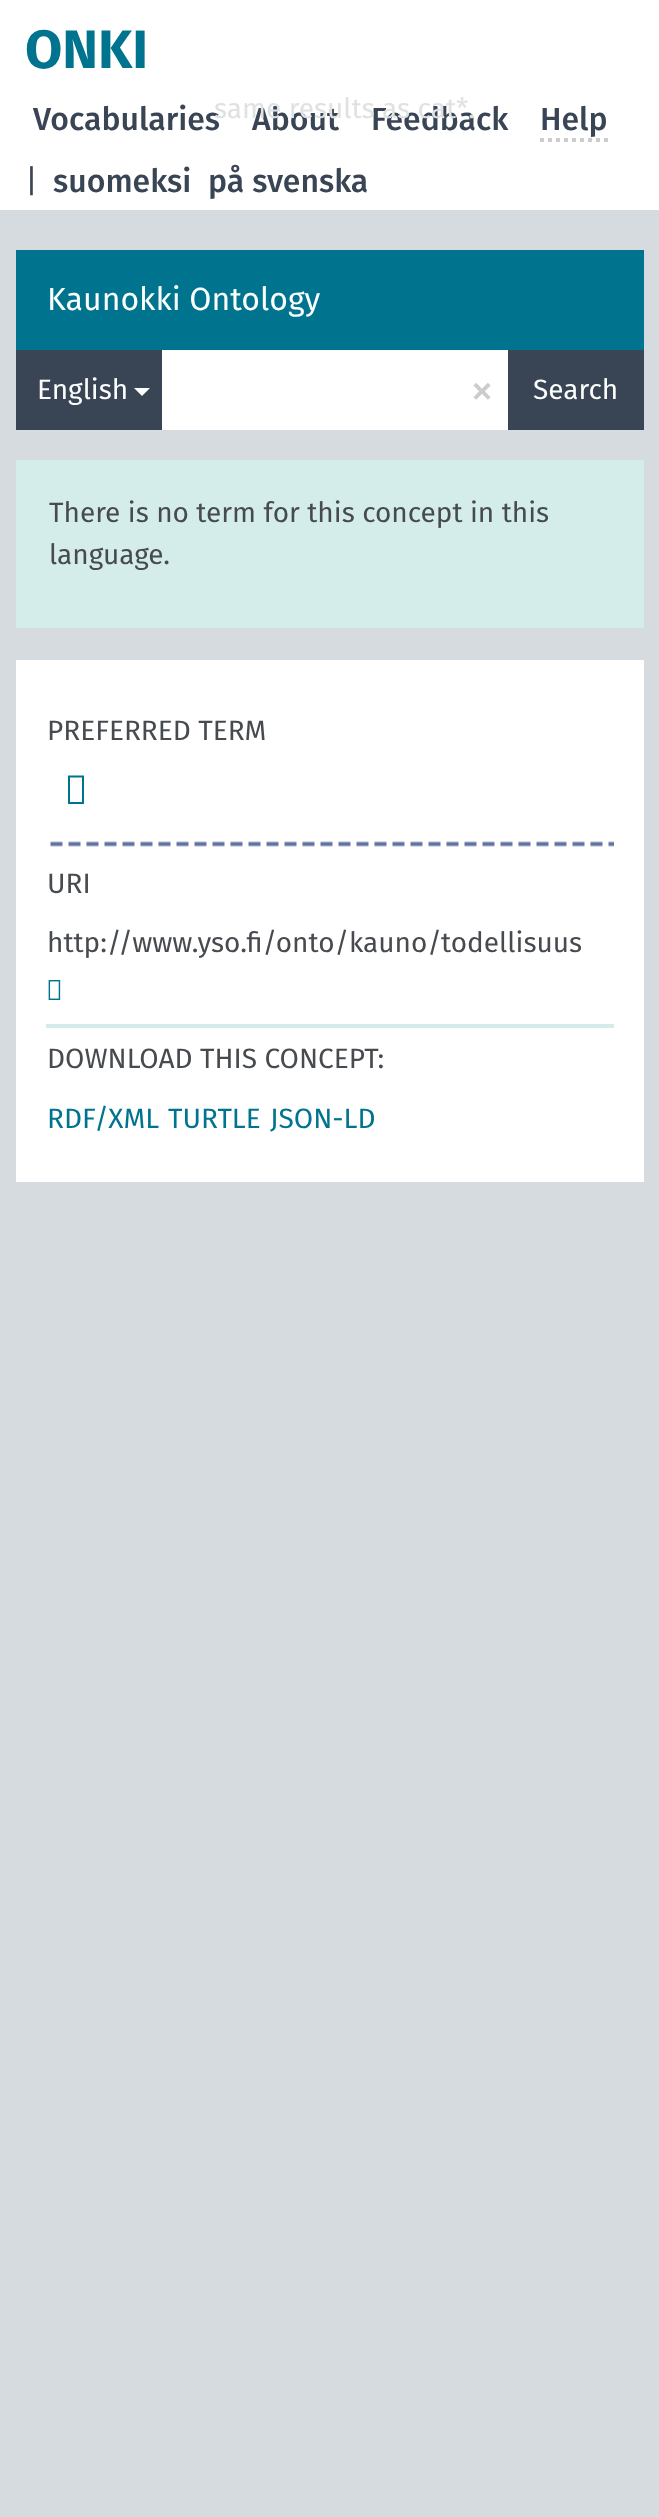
<!DOCTYPE html>
<meta charset="utf-8">
<style>body { margin: 0 } canvas { display: block }</style>
<canvas id="canvas" width="659" height="2517"></canvas>
<script type="module">
  const canvas = document.getElementById("canvas");
  const g = canvas.getContext("2d");
  g.miterLimit = 4;
  g.fontKerning = "normal";
  function drawText(s, x, y, [font, color]) {
    g.font = font;
    g.fillStyle = color;
    g.fillText(s, x, y);
  }
  function fillBox(x, y, w, h, color) {
    g.fillStyle = color;
    g.fillRect(x, y, w, h);
  }
  async function drawPicture(src, x, y, w, h) {
    const img = new Image();
    img.src = src;
    await img.decode();
    g.drawImage(img, x, y, w, h);
  }

  const s1 = ["bold 54px Fira Sans", "#00748F"];
  const s2 = ["500 32px Fira Sans", "#394554"];
  const s3 = ["28px Fira Sans", "#DFE1E3"];
  const s4 = ["32px Fira Sans", "#394554"];
  const s5 = ["32px Fira Sans", "#FCFEFE"];
  const s6 = ["28px Fira Sans", "#FCFEFE"];
  const s7 = ["48px Fira Sans", "#CCCCCC"];
  const s8 = ["28px Fira Sans", "#474B4F"];
  const s9 = ["28px Fira Sans", "#00748F"];

  fillBox(0, 0, 659, 2517, "#D5DBDE");
  fillBox(0, 0, 659, 210, "#FFFFFF");
  drawText("ONKI", 25, 68, s1);
  drawText("Vocabularies", 33, 130, s2);
  drawText("About", 252, 130, s2);
  drawText("Feedback", 371, 130, s2);
  drawText("same results as cat*.", 214, 118, s3);
  drawText("Help", 540, 130, s2);
  g.beginPath();
  g.moveTo(540, 140);
  g.lineTo(608, 140);
  g.strokeStyle = "#CCCCCC";
  g.lineWidth = 4;
  g.setLineDash([4, 4]);
  g.stroke();
  drawText("|", 25, 192, s4);
  drawText("suomeksi", 53, 192, s2);
  drawText("på svenska", 208, 192, s2);
  fillBox(16, 250, 628, 100, "#00748F");
  drawText("Kaunokki Ontology", 47, 310, s5);
  fillBox(16, 350, 146, 80, "#394554");
  drawText("English", 37, 399, s6);
  g.fillStyle = "#FFFFFF";
  g.beginPath();
  g.moveTo(134, 388);
  g.lineTo(150, 388);
  g.lineTo(142, 396);
  g.closePath();
  g.fill();
  fillBox(162, 350, 346, 80, "#FFFFFF");
  drawText("×", 470, 406, s7);
  fillBox(508, 350, 136, 80, "#394554");
  drawText("Search", 533, 399, s6);
  fillBox(16, 460, 628, 168, "#D4EDEB");
  drawText("There is no term for this concept in this", 49, 522, s8);
  drawText("language.", 49, 564, s8);
  fillBox(16, 660, 628, 522, "#FFFFFF");
  drawText("PREFERRED TERM", 47, 740, s8);
  g.fillStyle = "#00748F";
  g.beginPath();
  g.moveTo(68, 804);
  g.lineTo(68, 775.5);
  g.lineTo(84, 775.5);
  g.lineTo(84, 804);
  g.closePath();
  g.moveTo(70, 802);
  g.lineTo(82, 802);
  g.lineTo(82, 777.5);
  g.lineTo(70, 777.5);
  g.closePath();
  g.fill();
  await drawPicture("pic1.png", 50, 841, 564, 6);
  drawText("URI", 47, 893, s8);
  fillBox(46, 1024, 568, 4, "#D4EDEB");
  drawText("http://www.yso.fi/onto/kauno/todellisuus", 47, 952, s8);
  await drawPicture("pic2.png", 48, 980, 13, 20);
  drawText("DOWNLOAD THIS CONCEPT:", 47, 1068, s8);
  drawText("RDF/XML", 47, 1128, s9);
  drawText("TURTLE", 168, 1128, s9);
  drawText("JSON-LD", 270, 1128, s9);
</script>
